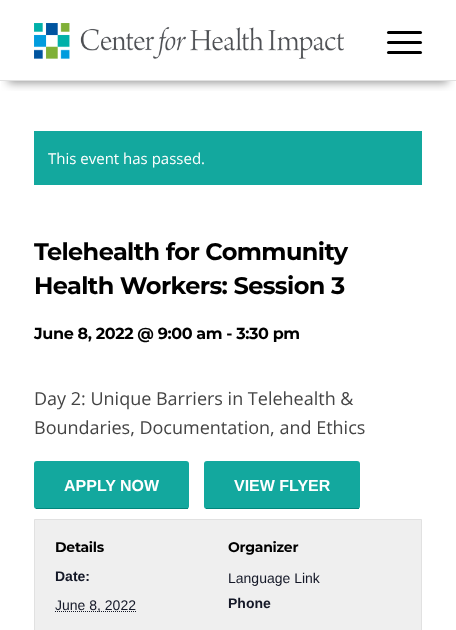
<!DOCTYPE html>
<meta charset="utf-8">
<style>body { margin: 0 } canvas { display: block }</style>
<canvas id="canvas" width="456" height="630"></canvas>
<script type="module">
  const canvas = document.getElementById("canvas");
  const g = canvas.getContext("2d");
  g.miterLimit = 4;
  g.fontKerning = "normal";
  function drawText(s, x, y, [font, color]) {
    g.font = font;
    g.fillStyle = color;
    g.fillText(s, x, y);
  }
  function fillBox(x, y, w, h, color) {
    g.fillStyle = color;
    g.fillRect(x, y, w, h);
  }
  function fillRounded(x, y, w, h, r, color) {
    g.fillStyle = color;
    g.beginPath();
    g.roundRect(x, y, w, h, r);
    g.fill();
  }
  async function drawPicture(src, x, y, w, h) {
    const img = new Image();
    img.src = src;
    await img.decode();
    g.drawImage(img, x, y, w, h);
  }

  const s1 = ["15px Open Sans", "#FFFFFF"];
  const s2 = ["bold 24px Montserrat", "#000000"];
  const s3 = ["bold 16px Montserrat", "#000000"];
  const s4 = ["18px Open Sans", "#444444"];
  const s5 = ["bold 16px Liberation Sans", "#FFFFFF"];
  const s6 = ["bold 14px Montserrat", "#000000"];
  const s7 = ["bold 14px Liberation Sans", "#141827"];
  const s8 = ["14px Liberation Sans", "#141827"];

  fillBox(0, 0, 456, 630, "#FFFFFF");
  g.save();
  g.beginPath();
  g.rect(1, 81, 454, 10);
  g.clip();
  g.fillStyle = "rgba(0, 0, 0, 0.4)";
  g.filter = "blur(5px)";
  g.beginPath();
  g.rect(8, 18, 440, 65);
  g.fill();
  g.filter = "none";
  g.restore();
  fillBox(0, 80, 456, 1, "#E1E1E1");
  await drawPicture("pic1.png", 34, 23, 310, 36);
  fillRounded(387, 41, 35, 3, 1.5, "#000000");
  fillRounded(387, 31, 35, 3, 1.5, "#000000");
  fillRounded(387, 51, 35, 3, 1.5, "#000000");
  fillBox(34, 131, 388, 54, "#13A89E");
  drawText("This event has passed.", 48, 164, s1);
  g.letterSpacing = "-0.6px";
  drawText("Telehealth for Community", 34, 260, s2);
  drawText("Health Workers: Session 3", 34, 294, s2);
  g.letterSpacing = "-0.4px";
  drawText("June 8, 2022 @ 9:00 am - 3:30 pm", 34, 339, s3);
  g.letterSpacing = "0px";
  drawText("Day 2: Unique Barriers in Telehealth &", 34, 405, s4);
  drawText("Boundaries, Documentation, and Ethics", 34, 434, s4);
  fillRounded(34, 461, 155, 48, 3, "#13A89E");
  fillBox(36, 508, 152, 1, "#01867C");
  drawText("APPLY NOW", 64, 491, s5);
  fillRounded(204, 461, 156, 48, 3, "#13A89E");
  fillBox(206, 508, 153, 1, "#01867C");
  drawText("VIEW FLYER", 234, 491, s5);
  g.fillStyle = "#EFEFEF";
  g.beginPath();
  g.rect(34.5, 519.5, 387, 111);
  g.fill();
  g.strokeStyle = "#E1E1E1";
  g.stroke();
  g.letterSpacing = "-0.25px";
  drawText("Details", 55, 552, s6);
  g.letterSpacing = "0px";
  drawText("Date:", 55, 581, s7);
  g.beginPath();
  g.moveTo(55, 611.5);
  g.lineTo(136, 611.5);
  g.strokeStyle = "#141827";
  g.setLineDash([1, 1]);
  g.stroke();
  drawText("June 8, 2022", 55, 610, s8);
  g.letterSpacing = "-0.25px";
  drawText("Organizer", 228, 552, s6);
  g.letterSpacing = "0px";
  drawText("Language Link", 228, 583, s8);
  drawText("Phone", 228, 608, s7);
</script>
